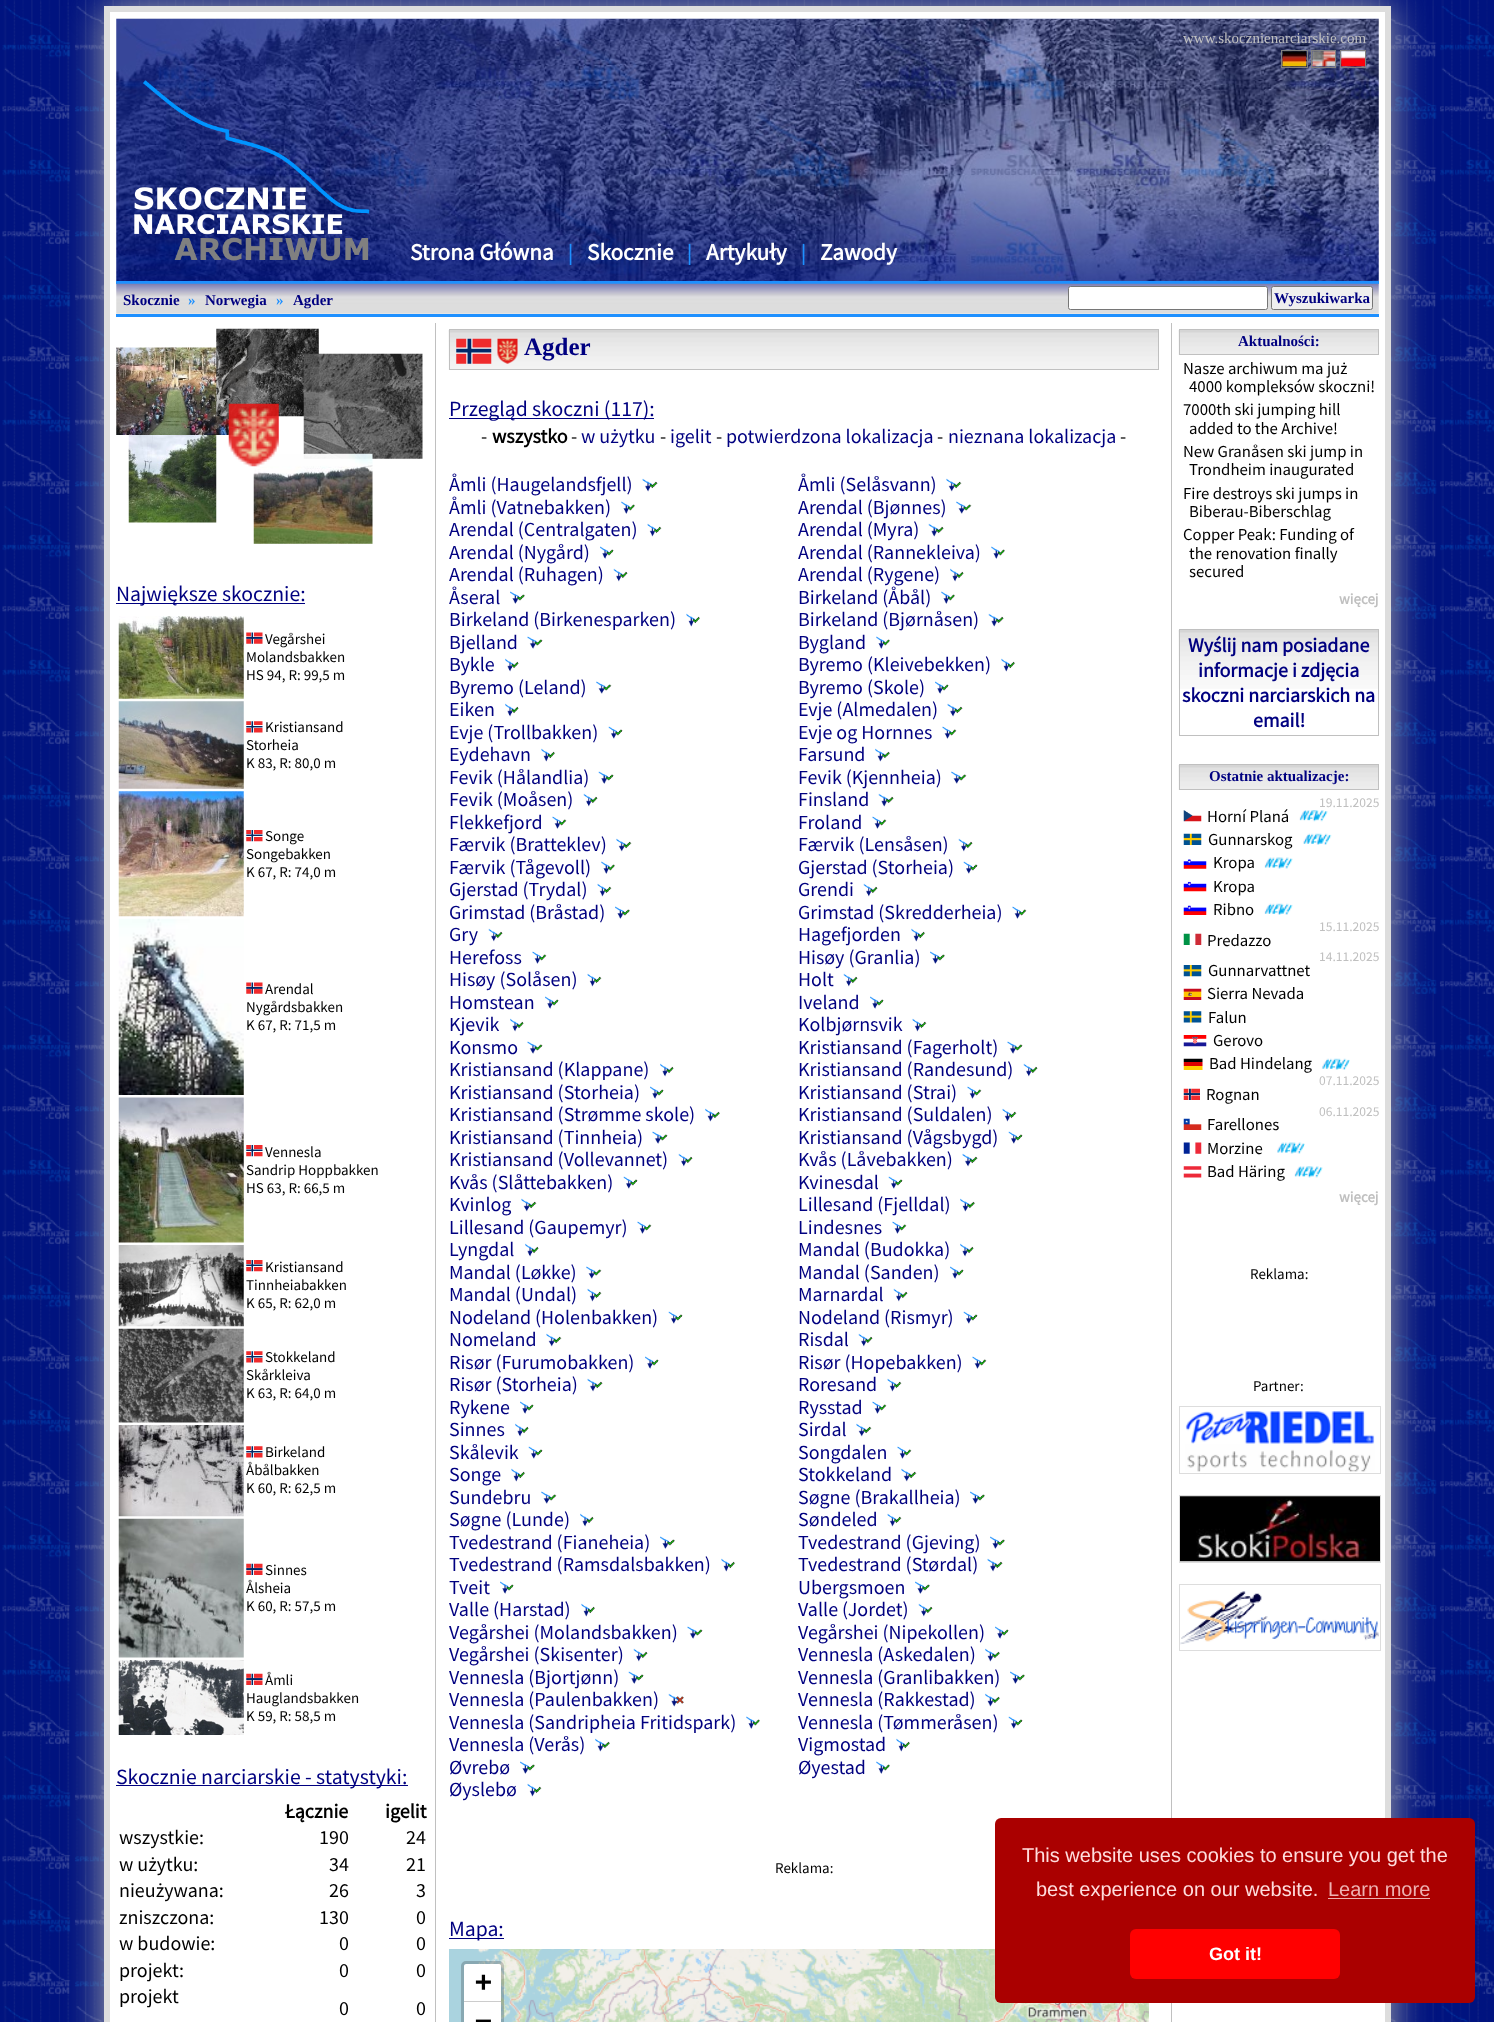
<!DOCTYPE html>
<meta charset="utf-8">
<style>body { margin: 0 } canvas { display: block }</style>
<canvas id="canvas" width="1494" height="2022"></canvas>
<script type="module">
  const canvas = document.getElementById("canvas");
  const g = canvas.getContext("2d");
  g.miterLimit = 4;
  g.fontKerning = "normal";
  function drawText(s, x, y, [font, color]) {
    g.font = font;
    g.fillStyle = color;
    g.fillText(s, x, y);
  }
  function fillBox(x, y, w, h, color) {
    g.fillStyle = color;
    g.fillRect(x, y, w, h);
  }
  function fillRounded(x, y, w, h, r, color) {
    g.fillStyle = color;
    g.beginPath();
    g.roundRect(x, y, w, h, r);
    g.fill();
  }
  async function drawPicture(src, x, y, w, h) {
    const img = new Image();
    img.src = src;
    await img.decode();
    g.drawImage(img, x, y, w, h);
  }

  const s1 = ["15px Liberation Serif", "#C0C0C0"];
  const s2 = ["bold 23.25px Source Sans Pro", "#FFFFFF"];
  const s3 = ["bold 23.25px Liberation Serif", "#1E90FF"];
  const s4 = ["bold 15px Liberation Serif", "#000080"];
  const s5 = ["bold 15px Liberation Serif", "#1E90FF"];
  const s6 = ["21.7px Source Sans Pro", "#000080"];
  const s7 = ["15px Source Sans Pro", "#000000"];
  const s8 = ["bold 20px Source Sans Pro", "#000000"];
  const s9 = ["20px Source Sans Pro", "#000000"];
  const s10 = ["bold 25px Liberation Serif", "#000080"];
  const s11 = ["20px Source Sans Pro", "#000080"];
  const s12 = ["bold 28px DejaVu Sans Mono", "#000000"];
  const s13 = ["16.75px Source Sans Pro", "#000000"];
  const s14 = ["bold 15px Source Sans Pro", "#C0C0C0"];
  const s15 = ["bold 20px Source Sans Pro", "#000080"];
  const s16 = ["13.5px Source Sans Pro", "#C0C0C0"];
  const s17 = ["20px Liberation Sans", "#FFDDDD"];
  const s18 = ["20px Liberation Sans", "#EEB1B1"];
  const s19 = ["bold 18px Liberation Sans", "#FFFFFF"];

  fillBox(0, 0, 1494, 2022, "#FFFFFF");
  await drawPicture("pic1.png", 0, 0, 1494, 2022);
  g.fillStyle = "#AAAAAA";
  g.filter = "blur(19px)";
  g.beginPath();
  g.rect(104, 6, 1287, 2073);
  g.fill();
  g.filter = "none";
  g.fillStyle = "#FFFFFF";
  g.beginPath();
  g.rect(107, 9, 1281, 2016);
  g.fill();
  g.strokeStyle = "#DDDDDD";
  g.lineWidth = 6;
  g.stroke();
  await drawPicture("pic2.png", 116, 18, 1263, 263);
  fillBox(116, 281, 1263, 3, "#1E90FF");
  drawText("www.skocznienarciarskie.com", 1183, 43, s1);
  g.strokeStyle = "#808080";
  g.lineWidth = 1;
  g.strokeRect(1281.5, 50.5, 26, 17);
  g.strokeRect(1311.5, 50.5, 24, 17);
  g.strokeRect(1340.5, 50.5, 25, 17);
  await drawPicture("pic3.png", 1282, 51, 25, 16);
  await drawPicture("pic4.png", 1312, 51, 23, 16);
  await drawPicture("pic5.png", 1341, 51, 24, 16);
  await drawPicture("pic6.png", 134, 80, 236, 181);
  drawText("Strona Główna", 410, 260, s2);
  drawText("|", 568, 260, s3);
  drawText("Skocznie", 587, 260, s2);
  drawText("|", 687, 260, s3);
  drawText("Artykuły", 706, 260, s2);
  drawText("|", 801, 260, s3);
  drawText("Zawody", 820, 260, s2);
  fillBox(116, 314, 1263, 3, "#1E90FF");
  await drawPicture("pic7.png", 116, 283, 844, 31);
  drawText("Skocznie", 123, 305, s4);
  drawText("»", 188, 305, s5);
  drawText("Norwegia", 205, 305, s4);
  drawText("»", 276, 305, s5);
  drawText("Agder", 293, 305, s4);
  await drawPicture("pic8.png", 960, 283, 419, 31);
  g.fillStyle = "#FFFFFF";
  g.beginPath();
  g.roundRect(1068.5, 286.5, 199, 23, 2);
  g.fill();
  g.strokeStyle = "#767676";
  g.stroke();
  g.fillStyle = "#EFEFEF";
  g.beginPath();
  g.roundRect(1271.5, 286.5, 101, 23, 2);
  g.fill();
  g.stroke();
  drawText("Wyszukiwarka", 1274, 303, s4);
  await drawPicture("pic9.png", 116, 347, 132, 88);
  await drawPicture("pic10.png", 216, 328, 103, 89);
  await drawPicture("pic11.png", 303, 353, 120, 106);
  await drawPicture("pic12.png", 128, 435, 89, 88);
  await drawPicture("pic14.png", 253, 453, 120, 91);
  await drawPicture("pic13.png", 228, 403, 51, 64);
  fillBox(116, 603, 189, 1, "#000080");
  drawText("Największe skocznie:", 116, 601, s6);
  await drawPicture("pic15.png", 118, 616, 126, 83);
  await drawPicture("pic16.png", 246, 632, 17, 12);
  drawText("Vegårshei", 265, 644, s7);
  drawText("Molandsbakken", 246, 662, s7);
  drawText("HS 94, R: 99,5 m", 246, 680, s7);
  await drawPicture("pic17.png", 118, 701, 126, 88);
  await drawPicture("pic18.png", 246, 721, 17, 12);
  drawText("Kristiansand", 265, 732, s7);
  drawText("Storheia", 246, 750, s7);
  drawText("K 83, R: 80,0 m", 246, 768, s7);
  await drawPicture("pic19.png", 118, 791, 126, 126);
  await drawPicture("pic20.png", 246, 830, 17, 12);
  drawText("Songe", 265, 841, s7);
  drawText("Songebakken", 246, 859, s7);
  drawText("K 67, R: 74,0 m", 246, 877, s7);
  await drawPicture("pic21.png", 118, 918, 126, 177);
  await drawPicture("pic16.png", 246, 982, 17, 12);
  drawText("Arendal", 265, 994, s7);
  drawText("Nygårdsbakken", 246, 1012, s7);
  drawText("K 67, R: 71,5 m", 246, 1030, s7);
  await drawPicture("pic22.png", 118, 1097, 126, 146);
  await drawPicture("pic23.png", 246, 1145, 17, 12);
  drawText("Vennesla", 265, 1157, s7);
  drawText("Sandrip Hoppbakken", 246, 1175, s7);
  drawText("HS 63, R: 66,5 m", 246, 1193, s7);
  await drawPicture("pic24.png", 118, 1245, 126, 82);
  await drawPicture("pic23.png", 246, 1260, 17, 12);
  drawText("Kristiansand", 265, 1272, s7);
  drawText("Tinnheiabakken", 246, 1290, s7);
  drawText("K 65, R: 62,0 m", 246, 1308, s7);
  await drawPicture("pic25.png", 118, 1328, 126, 95);
  await drawPicture("pic18.png", 246, 1351, 17, 12);
  drawText("Stokkeland", 265, 1362, s7);
  drawText("Skårkleiva", 246, 1380, s7);
  drawText("K 63, R: 64,0 m", 246, 1398, s7);
  await drawPicture("pic26.png", 118, 1425, 126, 92);
  await drawPicture("pic18.png", 246, 1446, 17, 12);
  drawText("Birkeland", 265, 1457, s7);
  drawText("Åbålbakken", 246, 1475, s7);
  drawText("K 60, R: 62,5 m", 246, 1493, s7);
  await drawPicture("pic27.png", 118, 1518, 126, 140);
  await drawPicture("pic28.png", 246, 1563, 17, 12);
  drawText("Sinnes", 265, 1575, s7);
  drawText("Ålsheia", 246, 1593, s7);
  drawText("K 60, R: 57,5 m", 246, 1611, s7);
  await drawPicture("pic29.png", 118, 1660, 126, 75);
  await drawPicture("pic28.png", 246, 1673, 17, 12);
  drawText("Åmli", 265, 1685, s7);
  drawText("Hauglandsbakken", 246, 1703, s7);
  drawText("K 59, R: 58,5 m", 246, 1721, s7);
  fillBox(116, 1785, 292, 1, "#000080");
  drawText("Skocznie narciarskie - statystyki:", 116, 1784, s6);
  drawText("Łącznie", 285, 1818, s8);
  drawText("igelit", 385, 1818, s8);
  drawText("wszystkie:", 119, 1844, s9);
  drawText("190", 319, 1844, s9);
  drawText("24", 406, 1844, s9);
  drawText("w użytku:", 119, 1871, s9);
  drawText("34", 329, 1871, s9);
  drawText("21", 406, 1871, s9);
  drawText("nieużywana:", 119, 1897, s9);
  drawText("26", 329, 1897, s9);
  drawText("3", 416, 1897, s9);
  drawText("zniszczona:", 119, 1924, s9);
  drawText("130", 319, 1924, s9);
  drawText("0", 416, 1924, s9);
  drawText("w budowie:", 119, 1950, s9);
  drawText("0", 339, 1950, s9);
  drawText("0", 416, 1950, s9);
  drawText("projekt:", 119, 1977, s9);
  drawText("0", 339, 1977, s9);
  drawText("0", 416, 1977, s9);
  drawText("projekt", 119, 2003, s9);
  drawText("0", 339, 2015, s9);
  drawText("0", 416, 2015, s9);
  fillBox(1171, 323, 1, 1699, "#C0C0C0");
  fillBox(435, 323, 1, 1699, "#C0C0C0");
  await drawPicture("pic30.png", 448, 330, 710, 40);
  g.strokeStyle = "#C0C0C0";
  g.strokeRect(449.5, 329.5, 709, 40);
  await drawPicture("pic31.png", 456, 338, 36, 26);
  await drawPicture("pic32.png", 497, 338, 21, 26);
  drawText("Agder", 524, 355, s10);
  fillBox(449, 418, 205, 1, "#000080");
  drawText("Przegląd skoczni (117):", 449, 416, s6);
  drawText("-", 481, 443, s9);
  drawText("wszystko", 492, 443, s8);
  drawText("-", 571, 443, s9);
  drawText("w użytku", 581, 443, s11);
  drawText("-", 660, 443, s9);
  drawText("igelit", 670, 443, s11);
  drawText("-", 716, 443, s9);
  drawText("potwierdzona lokalizacja", 726, 443, s11);
  drawText("-", 937, 443, s9);
  drawText("nieznana lokalizacja", 948, 443, s11);
  drawText("-", 1120, 443, s9);
  drawText("Åmli (Haugelandsfjell)", 449, 491, s11);
  await drawPicture("pic33.png", 642, 478, 16, 14);
  drawText("Åmli (Selåsvann)", 798, 491, s11);
  await drawPicture("pic34.png", 946, 478, 16, 14);
  drawText("Åmli (Vatnebakken)", 449, 514, s11);
  await drawPicture("pic35.png", 621, 501, 14, 13);
  drawText("Arendal (Bjønnes)", 798, 514, s11);
  await drawPicture("pic36.png", 956, 501, 16, 13);
  drawText("Arendal (Centralgaten)", 449, 536, s11);
  await drawPicture("pic37.png", 647, 523, 15, 14);
  drawText("Arendal (Myra)", 798, 536, s11);
  await drawPicture("pic38.png", 928, 523, 16, 14);
  drawText("Arendal (Nygård)", 449, 559, s11);
  await drawPicture("pic39.png", 600, 546, 14, 13);
  drawText("Arendal (Rannekleiva)", 798, 559, s11);
  await drawPicture("pic35.png", 991, 546, 14, 13);
  drawText("Arendal (Ruhagen)", 449, 581, s11);
  await drawPicture("pic40.png", 613, 568, 15, 14);
  drawText("Arendal (Rygene)", 798, 581, s11);
  await drawPicture("pic41.png", 950, 568, 14, 14);
  drawText("Åseral", 449, 604, s11);
  await drawPicture("pic42.png", 510, 591, 15, 13);
  drawText("Birkeland (Åbål)", 798, 604, s11);
  await drawPicture("pic35.png", 941, 591, 14, 13);
  drawText("Birkeland (Birkenesparken)", 449, 626, s11);
  await drawPicture("pic43.png", 686, 613, 14, 14);
  drawText("Birkeland (Bjørnåsen)", 798, 626, s11);
  await drawPicture("pic38.png", 988, 613, 16, 14);
  drawText("Bjelland", 449, 649, s11);
  await drawPicture("pic44.png", 527, 636, 16, 13);
  drawText("Bygland", 798, 649, s11);
  await drawPicture("pic35.png", 876, 636, 14, 13);
  drawText("Bykle", 449, 671, s11);
  await drawPicture("pic45.png", 505, 658, 14, 14);
  drawText("Byremo (Kleivebekken)", 798, 671, s11);
  await drawPicture("pic46.png", 1001, 658, 14, 14);
  drawText("Byremo (Leland)", 449, 694, s11);
  await drawPicture("pic47.png", 596, 681, 16, 13);
  drawText("Byremo (Skole)", 798, 694, s11);
  await drawPicture("pic48.png", 935, 681, 14, 13);
  drawText("Eiken", 449, 716, s11);
  await drawPicture("pic45.png", 505, 703, 14, 14);
  drawText("Evje (Almedalen)", 798, 716, s11);
  await drawPicture("pic33.png", 947, 703, 16, 14);
  drawText("Evje (Trollbakken)", 449, 739, s11);
  await drawPicture("pic49.png", 608, 726, 15, 13);
  drawText("Evje og Hornnes", 798, 739, s11);
  await drawPicture("pic50.png", 942, 726, 15, 13);
  drawText("Eydehavn", 449, 761, s11);
  await drawPicture("pic46.png", 541, 748, 14, 14);
  drawText("Farsund", 798, 761, s11);
  await drawPicture("pic51.png", 875, 748, 15, 14);
  drawText("Fevik (Hålandlia)", 449, 784, s11);
  await drawPicture("pic52.png", 598, 771, 16, 13);
  drawText("Fevik (Kjennheia)", 798, 784, s11);
  await drawPicture("pic47.png", 951, 771, 16, 13);
  drawText("Fevik (Moåsen)", 449, 806, s11);
  await drawPicture("pic40.png", 583, 793, 15, 14);
  drawText("Finsland", 798, 806, s11);
  await drawPicture("pic38.png", 878, 793, 16, 14);
  drawText("Flekkefjord", 449, 829, s11);
  await drawPicture("pic53.png", 552, 816, 15, 13);
  drawText("Froland", 798, 829, s11);
  await drawPicture("pic50.png", 872, 816, 15, 13);
  drawText("Færvik (Bratteklev)", 449, 851, s11);
  await drawPicture("pic54.png", 616, 838, 16, 14);
  drawText("Færvik (Lensåsen)", 798, 851, s11);
  await drawPicture("pic55.png", 958, 838, 15, 14);
  drawText("Færvik (Tågevoll)", 449, 874, s11);
  await drawPicture("pic35.png", 601, 861, 14, 13);
  drawText("Gjerstad (Storheia)", 798, 874, s11);
  await drawPicture("pic49.png", 963, 861, 15, 13);
  drawText("Gjerstad (Trydal)", 449, 896, s11);
  await drawPicture("pic37.png", 597, 883, 15, 14);
  drawText("Grendi", 798, 896, s11);
  await drawPicture("pic55.png", 863, 883, 15, 14);
  drawText("Grimstad (Bråstad)", 449, 919, s11);
  await drawPicture("pic42.png", 615, 906, 15, 13);
  drawText("Grimstad (Skredderheia)", 798, 919, s11);
  await drawPicture("pic53.png", 1012, 906, 15, 13);
  drawText("Gry", 449, 941, s11);
  await drawPicture("pic55.png", 488, 928, 15, 14);
  drawText("Hagefjorden", 798, 941, s11);
  await drawPicture("pic46.png", 911, 928, 14, 14);
  drawText("Herefoss", 449, 964, s11);
  await drawPicture("pic53.png", 532, 951, 15, 13);
  drawText("Hisøy (Granlia)", 798, 964, s11);
  await drawPicture("pic42.png", 930, 951, 15, 13);
  drawText("Hisøy (Solåsen)", 449, 986, s11);
  await drawPicture("pic37.png", 587, 973, 15, 14);
  drawText("Holt", 798, 986, s11);
  await drawPicture("pic40.png", 843, 973, 15, 14);
  drawText("Homstean", 449, 1009, s11);
  await drawPicture("pic39.png", 545, 996, 14, 13);
  drawText("Iveland", 798, 1009, s11);
  await drawPicture("pic48.png", 870, 996, 14, 13);
  drawText("Kjevik", 449, 1031, s11);
  await drawPicture("pic45.png", 510, 1018, 14, 14);
  drawText("Kolbjørnsvik", 798, 1031, s11);
  await drawPicture("pic37.png", 912, 1018, 15, 14);
  drawText("Konsmo", 449, 1054, s11);
  await drawPicture("pic44.png", 527, 1041, 16, 13);
  drawText("Kristiansand (Fagerholt)", 798, 1054, s11);
  await drawPicture("pic44.png", 1007, 1041, 16, 13);
  drawText("Kristiansand (Klappane)", 449, 1076, s11);
  await drawPicture("pic45.png", 660, 1063, 14, 14);
  drawText("Kristiansand (Randesund)", 798, 1076, s11);
  await drawPicture("pic55.png", 1023, 1063, 15, 14);
  drawText("Kristiansand (Storheia)", 449, 1099, s11);
  await drawPicture("pic48.png", 650, 1086, 14, 13);
  drawText("Kristiansand (Strai)", 798, 1099, s11);
  await drawPicture("pic53.png", 967, 1086, 15, 13);
  drawText("Kristiansand (Strømme skole)", 449, 1121, s11);
  await drawPicture("pic56.png", 705, 1108, 15, 14);
  drawText("Kristiansand (Suldalen)", 798, 1121, s11);
  await drawPicture("pic37.png", 1002, 1108, 15, 14);
  drawText("Kristiansand (Tinnheia)", 449, 1144, s11);
  await drawPicture("pic57.png", 652, 1131, 16, 13);
  drawText("Kristiansand (Vågsbygd)", 798, 1144, s11);
  await drawPicture("pic49.png", 1008, 1131, 15, 13);
  drawText("Kristiansand (Vollevannet)", 449, 1166, s11);
  await drawPicture("pic55.png", 678, 1153, 15, 14);
  drawText("Kvås (Låvebakken)", 798, 1166, s11);
  await drawPicture("pic58.png", 962, 1153, 16, 14);
  drawText("Kvås (Slåttebakken)", 449, 1189, s11);
  await drawPicture("pic59.png", 623, 1176, 15, 13);
  drawText("Kvinesdal", 798, 1189, s11);
  await drawPicture("pic59.png", 888, 1176, 15, 13);
  drawText("Kvinlog", 449, 1211, s11);
  await drawPicture("pic54.png", 521, 1198, 16, 14);
  drawText("Lillesand (Fjelldal)", 798, 1211, s11);
  await drawPicture("pic51.png", 960, 1198, 15, 14);
  drawText("Lillesand (Gaupemyr)", 449, 1234, s11);
  await drawPicture("pic50.png", 637, 1221, 15, 13);
  drawText("Lindesnes", 798, 1234, s11);
  await drawPicture("pic50.png", 892, 1221, 15, 13);
  drawText("Lyngdal", 449, 1256, s11);
  await drawPicture("pic41.png", 525, 1243, 14, 14);
  drawText("Mandal (Budokka)", 798, 1256, s11);
  await drawPicture("pic45.png", 960, 1243, 14, 14);
  drawText("Mandal (Løkke)", 449, 1279, s11);
  await drawPicture("pic47.png", 586, 1266, 16, 13);
  drawText("Mandal (Sanden)", 798, 1279, s11);
  await drawPicture("pic39.png", 950, 1266, 14, 13);
  drawText("Mandal (Undal)", 449, 1301, s11);
  await drawPicture("pic37.png", 587, 1288, 15, 14);
  drawText("Marnardal", 798, 1301, s11);
  await drawPicture("pic55.png", 893, 1288, 15, 14);
  drawText("Nodeland (Holenbakken)", 449, 1324, s11);
  await drawPicture("pic49.png", 668, 1311, 15, 13);
  drawText("Nodeland (Rismyr)", 798, 1324, s11);
  await drawPicture("pic49.png", 963, 1311, 15, 13);
  drawText("Nomeland", 449, 1346, s11);
  await drawPicture("pic34.png", 546, 1333, 16, 14);
  drawText("Risdal", 798, 1346, s11);
  await drawPicture("pic55.png", 858, 1333, 15, 14);
  drawText("Risør (Furumobakken)", 449, 1369, s11);
  await drawPicture("pic39.png", 645, 1356, 14, 13);
  drawText("Risør (Hopebakken)", 798, 1369, s11);
  await drawPicture("pic53.png", 972, 1356, 15, 13);
  drawText("Risør (Storheia)", 449, 1391, s11);
  await drawPicture("pic58.png", 587, 1378, 16, 14);
  drawText("Roresand", 798, 1391, s11);
  await drawPicture("pic37.png", 887, 1378, 15, 14);
  drawText("Rykene", 449, 1414, s11);
  await drawPicture("pic39.png", 520, 1401, 14, 13);
  drawText("Rysstad", 798, 1414, s11);
  await drawPicture("pic50.png", 872, 1401, 15, 13);
  drawText("Sinnes", 449, 1436, s11);
  await drawPicture("pic45.png", 515, 1423, 14, 14);
  drawText("Sirdal", 798, 1436, s11);
  await drawPicture("pic54.png", 856, 1423, 16, 14);
  drawText("Skålevik", 449, 1459, s11);
  await drawPicture("pic59.png", 528, 1446, 15, 13);
  drawText("Songdalen", 798, 1459, s11);
  await drawPicture("pic50.png", 897, 1446, 15, 13);
  drawText("Songe", 449, 1481, s11);
  await drawPicture("pic46.png", 511, 1468, 14, 14);
  drawText("Stokkeland", 798, 1481, s11);
  await drawPicture("pic34.png", 901, 1468, 16, 14);
  drawText("Sundebru", 449, 1504, s11);
  await drawPicture("pic47.png", 541, 1491, 16, 13);
  drawText("Søgne (Brakallheia)", 798, 1504, s11);
  await drawPicture("pic60.png", 970, 1491, 15, 13);
  drawText("Søgne (Lunde)", 449, 1526, s11);
  await drawPicture("pic41.png", 580, 1513, 14, 14);
  drawText("Søndeled", 798, 1526, s11);
  await drawPicture("pic37.png", 887, 1513, 15, 14);
  drawText("Tvedestrand (Fianeheia)", 449, 1549, s11);
  await drawPicture("pic42.png", 660, 1536, 15, 13);
  drawText("Tvedestrand (Gjeving)", 798, 1549, s11);
  await drawPicture("pic42.png", 990, 1536, 15, 13);
  drawText("Tvedestrand (Ramsdalsbakken)", 449, 1571, s11);
  await drawPicture("pic43.png", 721, 1558, 14, 14);
  drawText("Tvedestrand (Størdal)", 798, 1571, s11);
  await drawPicture("pic33.png", 987, 1558, 16, 14);
  drawText("Tveit", 449, 1594, s11);
  await drawPicture("pic39.png", 500, 1581, 14, 13);
  drawText("Ubergsmoen", 798, 1594, s11);
  await drawPicture("pic42.png", 915, 1581, 15, 13);
  drawText("Valle (Harstad)", 449, 1616, s11);
  await drawPicture("pic46.png", 581, 1603, 14, 14);
  drawText("Valle (Jordet)", 798, 1616, s11);
  await drawPicture("pic55.png", 918, 1603, 15, 14);
  drawText("Vegårshei (Molandsbakken)", 449, 1639, s11);
  await drawPicture("pic57.png", 687, 1626, 16, 13);
  drawText("Vegårshei (Nipekollen)", 798, 1639, s11);
  await drawPicture("pic48.png", 995, 1626, 14, 13);
  drawText("Vegårshei (Skisenter)", 449, 1661, s11);
  await drawPicture("pic40.png", 633, 1648, 15, 14);
  drawText("Vennesla (Askedalen)", 798, 1661, s11);
  await drawPicture("pic56.png", 985, 1648, 15, 14);
  drawText("Vennesla (Bjortjønn)", 449, 1684, s11);
  await drawPicture("pic52.png", 628, 1671, 16, 13);
  drawText("Vennesla (Granlibakken)", 798, 1684, s11);
  await drawPicture("pic61.png", 1010, 1671, 15, 13);
  drawText("Vennesla (Paulenbakken)", 449, 1706, s11);
  await drawPicture("pic62.png", 668, 1693, 16, 14);
  drawText("Vennesla (Rakkestad)", 798, 1706, s11);
  await drawPicture("pic56.png", 985, 1693, 15, 14);
  drawText("Vennesla (Sandripheia Fritidspark)", 449, 1729, s11);
  await drawPicture("pic35.png", 746, 1716, 14, 13);
  drawText("Vennesla (Tømmeråsen)", 798, 1729, s11);
  await drawPicture("pic49.png", 1008, 1716, 15, 13);
  drawText("Vennesla (Verås)", 449, 1751, s11);
  await drawPicture("pic51.png", 595, 1738, 15, 14);
  drawText("Vigmostad", 798, 1751, s11);
  await drawPicture("pic43.png", 896, 1738, 14, 14);
  drawText("Øvrebø", 449, 1774, s11);
  await drawPicture("pic42.png", 520, 1761, 15, 13);
  drawText("Øyestad", 798, 1774, s11);
  await drawPicture("pic35.png", 876, 1761, 14, 13);
  drawText("Øyslebø", 449, 1796, s11);
  await drawPicture("pic37.png", 527, 1783, 15, 14);
  drawText("Reklama:", 775, 1873, s7);
  fillBox(449, 1938, 55, 1, "#000080");
  drawText("Mapa:", 449, 1936, s6);
  await drawPicture("pic63.png", 449, 1949, 87, 73);
  await drawPicture("pic64.png", 536, 1949, 320, 73);
  await drawPicture("pic65.png", 856, 1949, 293, 73);
  g.beginPath();
  g.roundRect(462.5, 1962.5, 40, 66, 3.5);
  g.strokeStyle = "rgba(0, 0, 0, 0.2)";
  g.lineWidth = 3;
  g.stroke();
  g.fillStyle = "#FFFFFF";
  g.beginPath();
  g.roundRect(464, 1964, 37, 39, [2.5, 2.5, 0, 0]);
  g.fill();
  fillBox(464, 2001, 37, 1, "#CCCCCC");
  drawText("+", 475, 1991, s12);
  fillBox(464, 2003, 37, 19, "#FFFFFF");
  drawText("−", 475, 2030, s12);
  await drawPicture("pic66.png", 1178, 330, 200, 25);
  g.strokeStyle = "#C0C0C0";
  g.lineWidth = 1;
  g.strokeRect(1179.5, 329.5, 199, 25);
  drawText("Aktualności:", 1238, 346, s4);
  drawText("Nasze archiwum ma już", 1183, 374, s13);
  drawText("4000 kompleksów skoczni!", 1189, 392, s13);
  drawText("7000th ski jumping hill", 1183, 415, s13);
  drawText("added to the Archive!", 1189, 434, s13);
  drawText("New Granåsen ski jump in", 1183, 457, s13);
  drawText("Trondheim inaugurated", 1189, 475, s13);
  drawText("Fire destroys ski jumps in", 1183, 499, s13);
  drawText("Biberau-Biberschlag", 1189, 517, s13);
  drawText("Copper Peak: Funding of", 1183, 540, s13);
  drawText("the renovation finally", 1189, 559, s13);
  drawText("secured", 1189, 577, s13);
  drawText("więcej", 1339, 604, s14);
  await drawPicture("pic67.png", 1178, 630, 200, 59);
  g.strokeRect(1179.5, 629.5, 199, 106);
  drawText("Wyślij nam posiadane", 1188, 652, s15);
  drawText("informacje i zdjęcia", 1198, 677, s15);
  drawText("skoczni narciarskich na", 1182, 702, s15);
  drawText("email!", 1253, 727, s15);
  await drawPicture("pic66.png", 1178, 765, 200, 25);
  g.strokeRect(1179.5, 764.5, 199, 25);
  drawText("Ostatnie aktualizacje:", 1209, 781, s4);
  drawText("19.11.2025", 1319, 807, s16);
  await drawPicture("pic68.png", 1183, 810, 19, 12);
  drawText("Horní Planá", 1207, 822, s13);
  await drawPicture("pic69.png", 1299, 810, 29, 12);
  await drawPicture("pic70.png", 1183, 833, 19, 12);
  drawText("Gunnarskog", 1208, 845, s13);
  await drawPicture("pic71.png", 1303, 833, 29, 12);
  await drawPicture("pic72.png", 1183, 859, 24, 10);
  drawText("Kropa", 1213, 868, s13);
  await drawPicture("pic73.png", 1264, 857, 29, 12);
  await drawPicture("pic74.png", 1183, 881, 24, 11);
  drawText("Kropa", 1213, 892, s13);
  await drawPicture("pic75.png", 1183, 905, 24, 10);
  drawText("Ribno", 1213, 915, s13);
  await drawPicture("pic76.png", 1264, 903, 29, 12);
  drawText("15.11.2025", 1319, 931, s16);
  await drawPicture("pic77.png", 1183, 933, 19, 12);
  drawText("Predazzo", 1207, 946, s13);
  drawText("14.11.2025", 1319, 961, s16);
  await drawPicture("pic78.png", 1183, 965, 19, 12);
  drawText("Gunnarvattnet", 1208, 976, s13);
  await drawPicture("pic79.png", 1183, 988, 19, 12);
  drawText("Sierra Nevada", 1207, 999, s13);
  await drawPicture("pic80.png", 1183, 1011, 19, 12);
  drawText("Falun", 1208, 1023, s13);
  await drawPicture("pic81.png", 1183, 1035, 24, 12);
  drawText("Gerovo", 1213, 1046, s13);
  await drawPicture("pic82.png", 1183, 1058, 20, 12);
  drawText("Bad Hindelang", 1209, 1069, s13);
  await drawPicture("pic83.png", 1321, 1058, 29, 12);
  drawText("07.11.2025", 1319, 1085, s16);
  await drawPicture("pic84.png", 1183, 1088, 17, 12);
  drawText("Rognan", 1206, 1100, s13);
  drawText("06.11.2025", 1319, 1116, s16);
  await drawPicture("pic85.png", 1183, 1118, 19, 12);
  drawText("Farellones", 1207, 1130, s13);
  await drawPicture("pic86.png", 1183, 1142, 19, 12);
  drawText("Morzine", 1207, 1154, s13);
  await drawPicture("pic87.png", 1277, 1142, 28, 12);
  await drawPicture("pic88.png", 1183, 1166, 19, 12);
  drawText("Bad Häring", 1207, 1177, s13);
  await drawPicture("pic89.png", 1294, 1166, 29, 12);
  drawText("więcej", 1339, 1202, s14);
  drawText("Reklama:", 1250, 1279, s7);
  drawText("Partner:", 1253, 1391, s7);
  g.strokeStyle = "#DDDDDD";
  g.strokeRect(1179.5, 1406.5, 201, 67);
  await drawPicture("pic90.png", 1185, 1411, 190, 61);
  g.strokeRect(1179.5, 1495.5, 201, 67);
  await drawPicture("pic91.png", 1180, 1496, 200, 66);
  g.strokeRect(1179.5, 1584.5, 201, 66);
  await drawPicture("pic92.png", 1180, 1591, 199, 54);
  fillRounded(995, 1818, 480, 185, 6, "#AA0000");
  drawText("This website uses cookies to ensure you get the", 1022, 1862, s17);
  drawText("best experience on our website.", 1036, 1896, s17);
  drawText("Learn more", 1328, 1896, s18);
  fillBox(1328, 1898, 102, 1, "#EEB1B1");
  fillRounded(1130, 1929, 210, 50, 6, "#FF0000");
  drawText("Got it!", 1209, 1960, s19);
</script>
